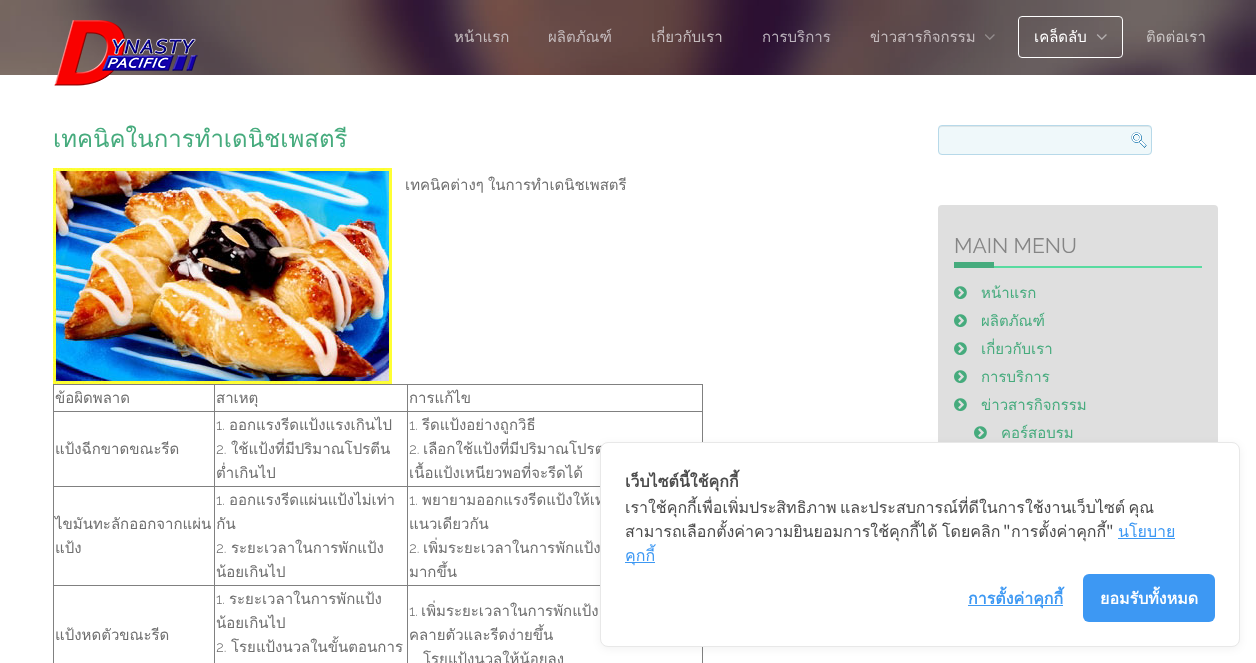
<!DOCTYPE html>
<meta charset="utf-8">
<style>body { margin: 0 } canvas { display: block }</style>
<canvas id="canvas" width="1256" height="663"></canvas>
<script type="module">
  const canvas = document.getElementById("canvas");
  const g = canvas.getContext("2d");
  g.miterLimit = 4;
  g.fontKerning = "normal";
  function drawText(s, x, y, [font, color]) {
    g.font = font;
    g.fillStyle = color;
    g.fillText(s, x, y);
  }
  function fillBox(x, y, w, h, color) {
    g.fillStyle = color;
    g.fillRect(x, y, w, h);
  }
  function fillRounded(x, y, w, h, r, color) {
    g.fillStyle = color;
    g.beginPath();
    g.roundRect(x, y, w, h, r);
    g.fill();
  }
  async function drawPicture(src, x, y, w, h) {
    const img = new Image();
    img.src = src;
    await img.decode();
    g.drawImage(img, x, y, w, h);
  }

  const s1 = ["15px Loma", "#C5BCBE"];
  const s2 = ["15px Loma", "#BAB2BB"];
  const s3 = ["15px Loma", "#FFFFFF"];
  const s4 = ["15px Loma", "#CAC6C6"];
  const s5 = ["24px Loma", "#46AB7D"];
  const s6 = ["15px Loma", "#6E6E6E"];
  const s7 = ["300 15px Raleway", "#6E6E6E"];
  const s8 = ["21px Raleway", "#858585"];
  const s9 = ["15px Loma", "#46AB7D"];
  const s10 = ["bold 16px Loma", "#4A4A4A"];
  const s11 = ["16px Loma", "#4A4A4A"];
  const s12 = ["16px Noto Sans JP", "#4A4A4A"];
  const s13 = ["16px Loma", "#3D98F3"];
  const s14 = ["bold 16px Loma", "#3D98F3"];
  const s15 = ["bold 16px Loma", "#FFFFFF"];

  fillBox(0, 0, 1256, 663, "#FFFFFF");
  await drawPicture("pic1.png", 0, 0, 1256, 75);
  await drawPicture("pic2.png", 54, 20, 144, 66);
  drawText("หน้าแรก", 454, 42, s1);
  drawText("ผลิตภัณฑ์", 548, 42, s1);
  drawText("เกี่ยวกับเรา", 651, 42, s1);
  drawText("การบริการ", 762, 42, s2);
  drawText("ข่าวสารกิจกรรม", 870, 42, s1);
  await drawPicture("pic3.png", 985, 34, 10, 6);
  g.beginPath();
  g.roundRect(1018.5, 16.5, 104, 41, 3.5);
  g.strokeStyle = "#FFFFFF";
  g.stroke();
  drawText("เคล็ดลับ", 1034, 42, s3);
  await drawPicture("pic4.png", 1096, 34, 11, 6);
  drawText("ติดต่อเรา", 1146, 42, s4);
  drawText("เทคนิคในการทำเดนิชเพสตรี", 53, 147, s5);
  await drawPicture("pic5.png", 53, 168, 339, 216);
  g.wordSpacing = "-1px";
  drawText("เทคนิคต่างๆ ในการทำเดนิชเพสตรี", 405, 190, s6);
  fillBox(53, 384, 650, 1, "#808080");
  fillBox(702, 384, 1, 279, "#808080");
  fillBox(53, 384, 1, 279, "#808080");
  g.wordSpacing = "0px";
  drawText("ข้อผิดพลาด", 55, 403, s6);
  fillBox(407, 411, 296, 1, "#808080");
  fillBox(407, 486, 193, 1, "#808080");
  fillBox(407, 585, 193, 1, "#808080");
  fillBox(407, 585, 1, 78, "#808080");
  fillBox(214, 585, 194, 1, "#808080");
  fillBox(407, 486, 1, 100, "#808080");
  fillBox(214, 486, 194, 1, "#808080");
  fillBox(407, 411, 1, 76, "#808080");
  fillBox(214, 411, 194, 1, "#808080");
  fillBox(214, 585, 1, 78, "#808080");
  fillBox(53, 585, 162, 1, "#808080");
  fillBox(214, 486, 1, 100, "#808080");
  fillBox(53, 486, 162, 1, "#808080");
  fillBox(214, 411, 1, 76, "#808080");
  fillBox(53, 411, 162, 1, "#808080");
  fillBox(214, 384, 1, 28, "#808080");
  drawText("สาเหตุ", 216, 403, s6);
  fillBox(407, 384, 1, 28, "#808080");
  drawText("การแก้ไข", 409, 403, s6);
  drawText("แป้งฉีกขาดขณะรีด", 55, 454, s6);
  drawText("1.", 216, 430, s7);
  drawText("ออกแรงรีดแป้งแรงเกินไป", 229, 430, s6);
  drawText("2.", 216, 454, s7);
  drawText("ใช้แป้งที่มีปริมาณโปรตีน", 231, 454, s6);
  drawText("ต่ำเกินไป", 216, 478, s6);
  drawText("1.", 409, 430, s7);
  drawText("รีดแป้งอย่างถูกวิธี", 422, 430, s6);
  drawText("2.", 409, 454, s7);
  g.wordSpacing = "-1px";
  drawText("เลือกใช้แป้งที่มีปริมาณโปรต", 423, 454, s6);
  g.wordSpacing = "0px";
  drawText("เนื้อแป้งเหนียวพอที่จะรีดได้", 409, 478, s6);
  drawText("ไขมันทะลักออกจากแผ่น กัน", 55, 529, s6);
  drawText("แป้ง", 55, 553, s6);
  drawText("1.", 216, 505, s7);
  drawText("ออกแรงรีดแผ่นแป้งไม่เท่า", 229, 505, s6);
  drawText("2.", 216, 553, s7);
  drawText("ระยะเวลาในการพักแป้ง", 231, 553, s6);
  drawText("น้อยเกินไป", 216, 577, s6);
  drawText("1.", 409, 505, s7);
  drawText("พยายามออกแรงรีดแป้งให้เท่", 422, 505, s6);
  drawText("แนวเดียวกัน", 409, 529, s6);
  drawText("2.", 409, 553, s7);
  drawText("เพิ่มระยะเวลาในการพักแป้ง", 423, 553, s6);
  drawText("มากขึ้น", 409, 577, s6);
  drawText("แป้งหดตัวขณะรีด", 55, 640, s6);
  drawText("1.", 216, 604, s7);
  drawText("ระยะเวลาในการพักแป้ง", 229, 604, s6);
  drawText("น้อยเกินไป", 216, 628, s6);
  drawText("2.", 216, 652, s7);
  drawText("โรยแป้งนวลในขั้นตอนการ", 231, 652, s6);
  drawText("1.", 409, 616, s7);
  g.wordSpacing = "-1px";
  drawText("เพิ่มระยะเวลาในการพักแป้ง", 421, 616, s6);
  g.wordSpacing = "0px";
  drawText("คลายตัวและรีดง่ายขึ้น", 409, 640, s6);
  drawText("โรยแป้งนวลให้น้อยลง", 423, 664, s6);
  fillRounded(938, 125, 214, 30, 4, "#EFF8FA");
  await drawPicture("pic6.png", 1131, 132, 16, 16);
  g.fillStyle = "#DDE5E7";
  g.beginPath();
  g.moveTo(942, 127);
  g.lineTo(1148, 127);
  g.bezierCurveTo(1150, 127, 1151, 128, 1151, 130);
  g.lineTo(1151, 129);
  g.bezierCurveTo(1151, 127, 1150, 126, 1148, 126);
  g.lineTo(942, 126);
  g.bezierCurveTo(940, 126, 939, 127, 939, 129);
  g.lineTo(939, 130);
  g.bezierCurveTo(939, 128, 940, 127, 942, 127);
  g.closePath();
  g.fill();
  g.beginPath();
  g.roundRect(938.5, 125.5, 213, 29, 3.5);
  g.strokeStyle = "#B7D9E9";
  g.stroke();
  fillRounded(938, 205, 280, 394, 4, "#DFDFDF");
  fillBox(994, 266, 208, 2, "#58DBA0");
  drawText("MAIN MENU", 954, 253, s8);
  fillBox(954, 262, 40, 6, "#46AB7D");
  await drawPicture("pic7.png", 954, 286, 13, 14);
  drawText("หน้าแรก", 981, 298, s9);
  await drawPicture("pic7.png", 954, 314, 13, 14);
  drawText("ผลิตภัณฑ์", 981, 326, s9);
  await drawPicture("pic7.png", 954, 342, 13, 14);
  drawText("เกี่ยวกับเรา", 981, 354, s9);
  await drawPicture("pic7.png", 954, 370, 13, 14);
  drawText("การบริการ", 981, 382, s9);
  await drawPicture("pic7.png", 954, 398, 13, 14);
  drawText("ข่าวสารกิจกรรม", 981, 410, s9);
  await drawPicture("pic7.png", 974, 426, 13, 14);
  drawText("คอร์สอบรม", 1001, 438, s9);
  g.fillStyle = "rgba(0, 0, 0, 0.05)";
  g.filter = "blur(4px)";
  g.beginPath();
  g.roundRect(600, 444, 640, 205, 8);
  g.fill();
  g.filter = "none";
  g.fillStyle = "#FFFFFF";
  g.beginPath();
  g.roundRect(600.5, 442.5, 639, 204, 7.5);
  g.fill();
  g.strokeStyle = "#E8E8E8";
  g.stroke();
  drawText("เว็บไซต์นี้ใช้คุกกี้", 625, 487, s10);
  g.wordSpacing = "-2px";
  drawText("เราใช้คุกกี้เพื่อเพิ่มประสิทธิภาพ และประสบการณ์ที่ดีในการใช้งานเว็บไซต์ คุณ", 625, 513, s11);
  g.wordSpacing = "-1px";
  drawText("สามารถเลือกตั้งค่าความยินยอมการใช้คุกกี้ได้ โดยคลิก", 625, 537, s11);
  g.wordSpacing = "0px";
  drawText("\"", 1003, 537, s12);
  drawText("การตั้งค่าคุกกี้", 1011, 537, s11);
  drawText("\"", 1106, 537, s12);
  drawText("นโยบาย", 1118, 537, s13);
  fillBox(1118, 538, 57, 1, "#3D98F3");
  fillBox(625, 562, 30, 1, "#3D98F3");
  drawText("คุกกี้", 625, 561, s13);
  fillBox(968, 605, 95, 1, "#3D98F3");
  drawText("การตั้งค่าคุกกี้", 968, 604, s14);
  fillRounded(1083, 574, 132, 48, 6, "#3D98F3");
  drawText("ยอมรับทั้งหมด", 1100, 604, s15);
</script>
